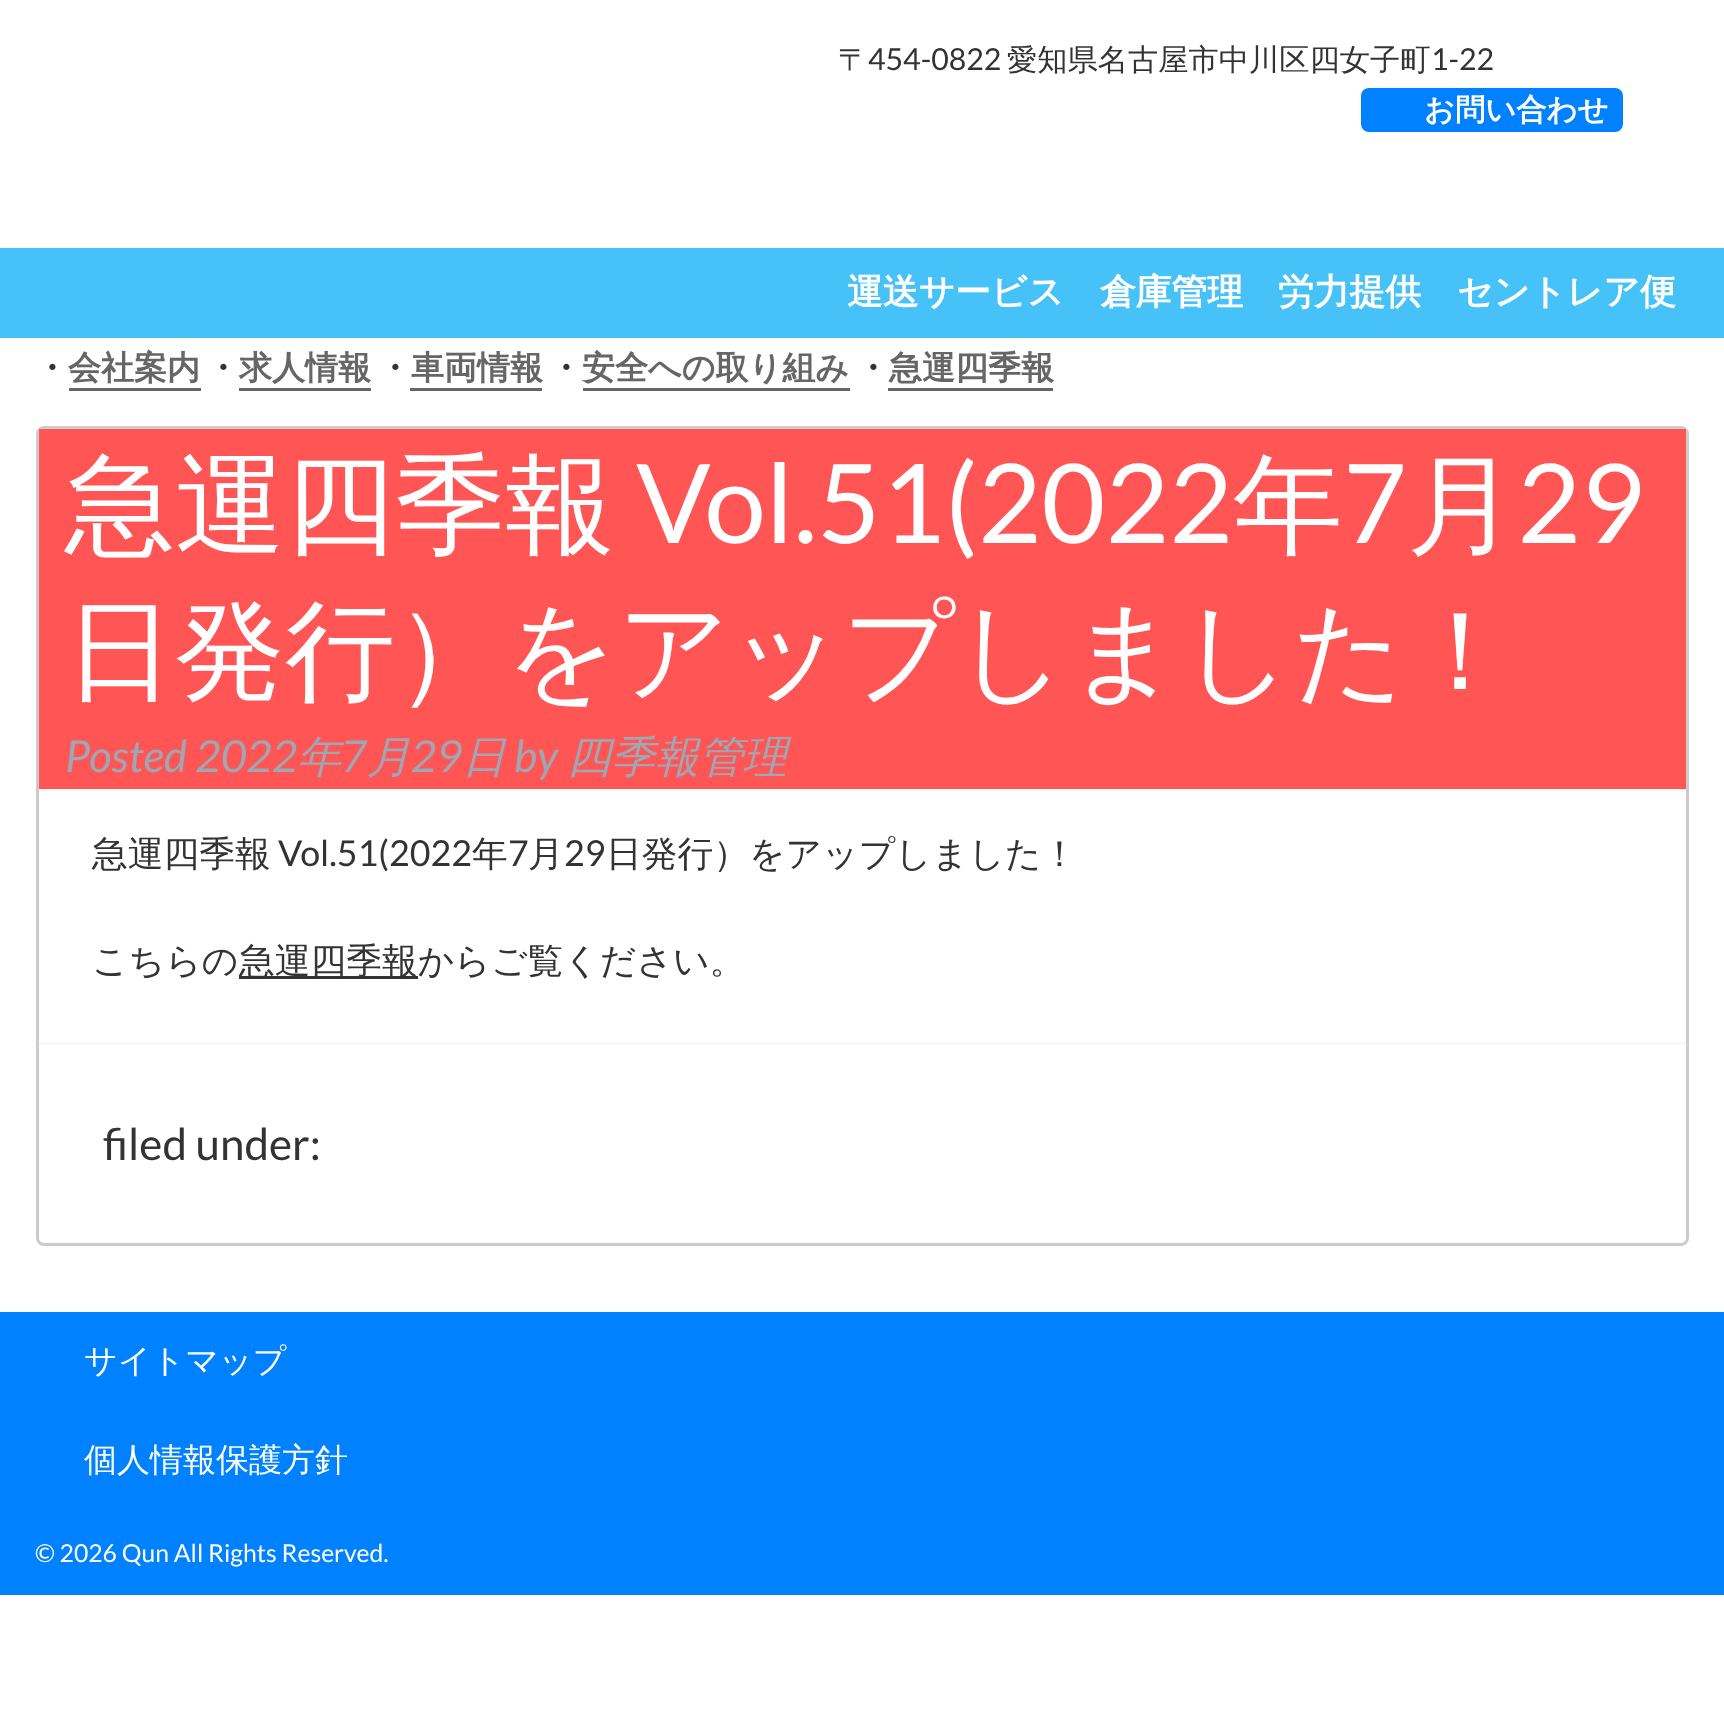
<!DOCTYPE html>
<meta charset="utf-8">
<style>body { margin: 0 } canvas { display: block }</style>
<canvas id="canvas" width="1724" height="1720"></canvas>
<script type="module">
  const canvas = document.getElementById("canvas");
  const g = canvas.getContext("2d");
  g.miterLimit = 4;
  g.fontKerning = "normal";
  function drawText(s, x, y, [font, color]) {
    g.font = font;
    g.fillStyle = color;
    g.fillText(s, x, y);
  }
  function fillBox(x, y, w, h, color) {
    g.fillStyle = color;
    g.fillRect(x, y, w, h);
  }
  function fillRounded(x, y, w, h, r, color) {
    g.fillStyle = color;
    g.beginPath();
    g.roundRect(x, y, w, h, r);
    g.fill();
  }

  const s1 = ["500 30.25px WenQuanYi Zen Hei", "#333333"];
  const s2 = ["30.25px Lato", "#333333"];
  const s3 = ["bold 30.25px WenQuanYi Zen Hei", "#FFFFFF"];
  const s4 = ["bold 35.75px WenQuanYi Zen Hei", "#FFFFFF"];
  const s5 = ["bold 33px WenQuanYi Zen Hei", "#333333"];
  const s6 = ["bold 33px WenQuanYi Zen Hei", "#666666"];
  const s7 = ["500 110px WenQuanYi Zen Hei", "#FFFFFF"];
  const s8 = ["110px Lato", "#FFFFFF"];
  const s9 = ["italic 44px Lato", "#9FA6B4"];
  const s10 = ["italic 500 44px WenQuanYi Zen Hei", "#9FA6B4"];
  const s11 = ["500 35.75px WenQuanYi Zen Hei", "#333333"];
  const s12 = ["35.75px Lato", "#333333"];
  const s13 = ["44px Lato", "#333333"];
  const s14 = ["500 33px WenQuanYi Zen Hei", "#FFFFFF"];
  const s15 = ["24.75px Lato", "#FFFFFF"];

  fillBox(0, 0, 1724, 1720, "#FFFFFF");
  drawText("〒", 838, 70, s1);
  drawText("454-0822", 868, 70, s2);
  drawText("愛知県名古屋市中川区四女子町", 1007, 70, s1);
  drawText("1-22", 1431, 70, s2);
  fillRounded(1361, 88, 262, 44, 8, "#0081FF");
  drawText("お問い合わせ", 1424, 120, s3);
  fillBox(0, 248, 1724, 90, "#46C2F8");
  drawText("運送サービス", 847, 304, s4);
  drawText("倉庫管理", 1100, 304, s4);
  drawText("労力提供", 1278, 304, s4);
  drawText("セントレア便", 1457, 304, s4);
  drawText("・", 35, 379, s5);
  drawText("会社案内", 68, 379, s6);
  fillBox(69, 388, 132, 3, "#666666");
  drawText("・", 206, 379, s5);
  drawText("求人情報", 239, 379, s6);
  fillBox(239, 388, 132, 3, "#666666");
  drawText("・", 378, 379, s5);
  drawText("車両情報", 411, 379, s6);
  fillBox(410, 388, 132, 3, "#666666");
  drawText("・", 549, 379, s5);
  drawText("安全への取り組み", 582, 379, s6);
  fillBox(583, 388, 267, 3, "#666666");
  drawText("・", 856, 379, s5);
  drawText("急運四季報", 889, 379, s6);
  fillBox(888, 388, 165, 3, "#666666");
  g.beginPath();
  g.roundRect(37.5, 427.5, 1650, 817, 6.5);
  g.strokeStyle = "#CCCCCC";
  g.lineWidth = 3;
  g.stroke();
  fillBox(39, 429, 1647, 360, "#FF5555");
  fillBox(39, 789, 1647, 3, "#F8F9FA");
  drawText("急運四季報", 65, 543, s7);
  drawText("Vol.51(2022", 636, 543, s8);
  drawText("年", 1233, 543, s7);
  drawText("7", 1343, 543, s8);
  drawText("月", 1407, 543, s7);
  drawText("29", 1517, 543, s8);
  drawText("日発行）をアップしました！", 65, 689, s7);
  drawText("Posted 2022", 65, 772, s9);
  drawText("年", 297, 772, s10);
  drawText("7", 341, 772, s9);
  drawText("月", 367, 772, s10);
  drawText("29", 411, 772, s9);
  drawText("日", 462, 772, s10);
  drawText("by", 514, 772, s9);
  drawText("四季報管理", 567, 772, s10);
  drawText("急運四季報", 92, 866, s11);
  drawText("Vol.51(2022", 278, 866, s12);
  drawText("年", 472, 866, s11);
  drawText("7", 508, 866, s12);
  drawText("月", 528, 866, s11);
  drawText("29", 564, 866, s12);
  drawText("日発行）をアップしました！", 606, 866, s11);
  drawText("こちらの", 92, 973, s11);
  fillBox(239, 976, 179, 3, "#333333");
  drawText("急運四季報からご覧ください。", 239, 973, s11);
  fillBox(39, 1042, 1647, 3, "#F8F9FA");
  drawText("filed under:", 103, 1160, s13);
  fillBox(0, 1312, 1724, 283, "#0081FF");
  drawText("サイトマップ", 84, 1372, s14);
  drawText("個人情報保護方針", 84, 1471, s14);
  drawText("© 2026 Qun All Rights Reserved.", 35, 1562, s15);
</script>
